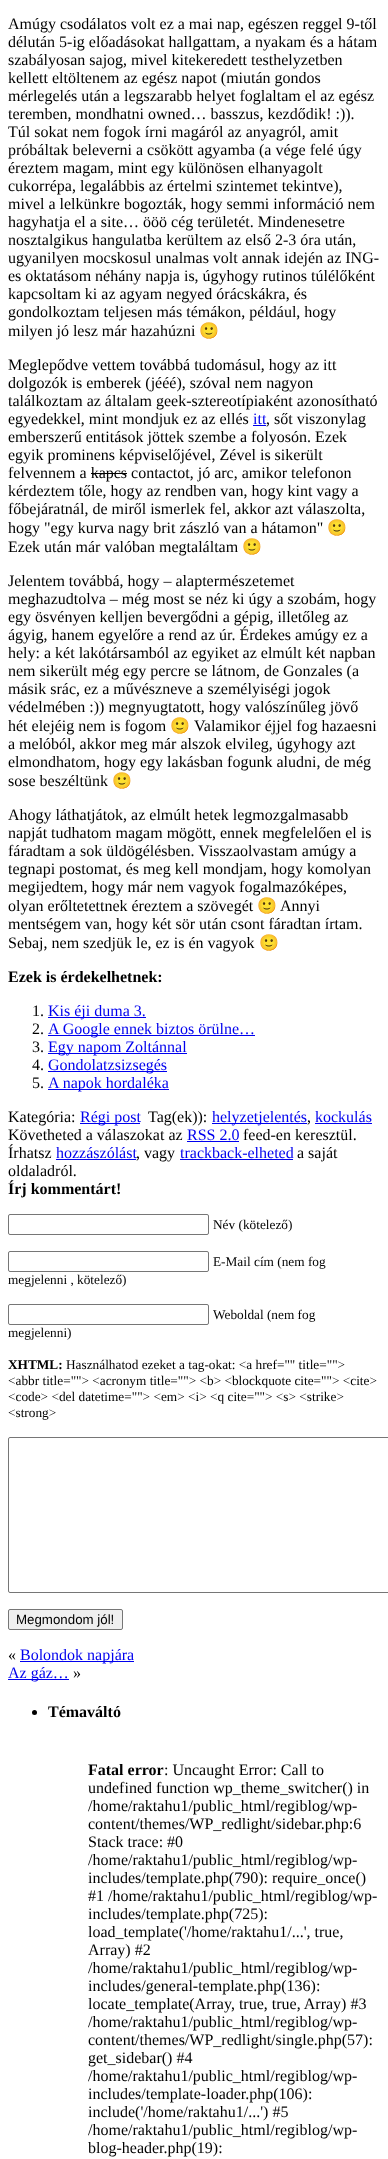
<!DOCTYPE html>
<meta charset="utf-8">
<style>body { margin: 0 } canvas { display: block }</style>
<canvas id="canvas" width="388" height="2159"></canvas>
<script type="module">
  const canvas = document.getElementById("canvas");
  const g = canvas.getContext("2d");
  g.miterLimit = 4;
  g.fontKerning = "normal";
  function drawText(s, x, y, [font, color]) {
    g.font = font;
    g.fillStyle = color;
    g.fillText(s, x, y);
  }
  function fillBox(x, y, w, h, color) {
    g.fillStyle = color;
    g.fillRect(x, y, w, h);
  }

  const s1 = ["16px Liberation Serif", "#000000"];
  const s2 = ["16px Noto Color Emoji", "#000000"];
  const s3 = ["16px Liberation Serif", "#0000EE"];
  const s4 = ["bold 16px Liberation Serif", "#000000"];
  const s5 = ["13.3px Liberation Serif", "#000000"];
  const s6 = ["bold 13.3px Liberation Serif", "#000000"];
  const s7 = ["13.3px Liberation Sans", "#000000"];

  fillBox(0, 0, 388, 2159, "#FFFFFF");
  drawText("Amúgy csodálatos volt ez a mai nap, egészen reggel 9-től", 8, 29, s1);
  drawText("délután 5-ig előadásokat hallgattam, a nyakam és a hátam", 8, 47, s1);
  drawText("szabályosan sajog, mivel kitekeredett testhelyzetben", 8, 65, s1);
  drawText("kellett eltöltenem az egész napot (miután gondos", 8, 83, s1);
  drawText("mérlegelés után a legszarabb helyet foglaltam el az egész", 8, 101, s1);
  drawText("teremben, mondhatni owned… basszus, kezdődik! :)).", 8, 119, s1);
  drawText("Túl sokat nem fogok írni magáról az anyagról, amit", 8, 137, s1);
  drawText("próbáltak beleverni a csökött agyamba (a vége felé úgy", 8, 155, s1);
  drawText("éreztem magam, mint egy különösen elhanyagolt", 8, 173, s1);
  drawText("cukorrépa, legalábbis az értelmi szintemet tekintve),", 8, 191, s1);
  drawText("mivel a lelkünkre bogozták, hogy semmi információ nem", 8, 209, s1);
  drawText("hagyhatja el a site… ööö cég területét. Mindenesetre", 8, 227, s1);
  drawText("nosztalgikus hangulatba kerültem az első 2-3 óra után,", 8, 245, s1);
  drawText("ugyanilyen mocskosul unalmas volt annak idején az ING-", 8, 263, s1);
  drawText("es oktatásom néhány napja is, úgyhogy rutinos túlélőként", 8, 281, s1);
  drawText("kapcsoltam ki az agyam negyed órácskákra, és", 8, 299, s1);
  drawText("gondolkoztam teljesen más témákon, például, hogy", 8, 317, s1);
  drawText("milyen jó lesz már hazahúzni", 8, 336, s1);
  drawText("🙂", 199, 336, s2);
  drawText("Meglepődve vettem továbbá tudomásul, hogy az itt", 8, 370, s1);
  drawText("dolgozók is emberek (jééé), szóval nem nagyon", 8, 388, s1);
  drawText("találkoztam az általam geek-sztereotípiaként azonosítható", 8, 406, s1);
  drawText("egyedekkel, mint mondjuk ez az ellés", 8, 424, s1);
  drawText("itt", 253, 424, s3);
  fillBox(253, 425, 13, 1, "#0000EE");
  drawText(", sőt viszonylag", 266, 424, s1);
  drawText("emberszerű entitások jöttek szembe a folyosón. Ezek", 8, 442, s1);
  drawText("egyik prominens képviselőjével, Zével is sikerült", 8, 460, s1);
  drawText("felvennem a kapcs contactot, jó arc, amikor telefonon", 8, 478, s1);
  fillBox(91, 473, 36, 1, "#000000");
  drawText("kérdeztem tőle, hogy az rendben van, hogy kint vagy a", 8, 496, s1);
  drawText("főbejáratnál, de miről ismerlek fel, akkor azt válaszolta,", 8, 514, s1);
  drawText("hogy \"egy kurva nagy brit zászló van a hátamon\"", 8, 533, s1);
  drawText("🙂", 327, 533, s2);
  drawText("Ezek után már valóban megtaláltam", 8, 552, s1);
  drawText("🙂", 242, 552, s2);
  drawText("Jelentem továbbá, hogy – alaptermészetemet", 8, 586, s1);
  drawText("meghazudtolva – még most se néz ki úgy a szobám, hogy", 8, 604, s1);
  drawText("egy ösvényen kelljen bevergődni a gépig, illetőleg az", 8, 622, s1);
  drawText("ágyig, hanem egyelőre a rend az úr. Érdekes amúgy ez a", 8, 640, s1);
  drawText("hely: a két lakótársamból az egyiket az elmúlt két napban", 8, 658, s1);
  drawText("nem sikerült még egy percre se látnom, de Gonzales (a", 8, 676, s1);
  drawText("másik srác, ez a művészneve a személyiségi jogok", 8, 694, s1);
  drawText("védelmében :)) megnyugtatott, hogy valószínűleg jövő", 8, 712, s1);
  drawText("hét elejéig nem is fogom", 8, 731, s1);
  drawText("🙂", 170, 731, s2);
  drawText("Valamikor éjjel fog hazaesni", 194, 731, s1);
  drawText("a melóból, akkor meg már alszok elvileg, úgyhogy azt", 8, 749, s1);
  drawText("elmondhatom, hogy egy lakásban fogunk aludni, de még", 8, 767, s1);
  drawText("sose beszéltünk", 8, 786, s1);
  drawText("🙂", 112, 786, s2);
  drawText("Ahogy láthatjátok, az elmúlt hetek legmozgalmasabb", 8, 820, s1);
  drawText("napját tudhatom magam mögött, ennek megfelelően el is", 8, 838, s1);
  drawText("fáradtam a sok üldögélésben. Visszaolvastam amúgy a", 8, 856, s1);
  drawText("tegnapi postomat, és meg kell mondjam, hogy komolyan", 8, 874, s1);
  drawText("megijedtem, hogy már nem vagyok fogalmazóképes,", 8, 892, s1);
  drawText("olyan erőltetettnek éreztem a szövegét", 8, 911, s1);
  drawText("🙂", 257, 911, s2);
  drawText("Annyi", 280, 911, s1);
  drawText("mentségem van, hogy két sör után csont fáradtan írtam.", 8, 929, s1);
  drawText("Sebaj, nem szedjük le, ez is én vagyok", 8, 948, s1);
  drawText("🙂", 259, 948, s2);
  drawText("Ezek is érdekelhetnek:", 8, 982, s4);
  drawText("1.", 32, 1016, s1);
  fillBox(48, 1017, 98, 1, "#0000EE");
  drawText("Kis éji duma 3.", 48, 1016, s3);
  drawText("2.", 32, 1034, s1);
  fillBox(48, 1035, 207, 1, "#0000EE");
  drawText("A Google ennek biztos örülne…", 48, 1034, s3);
  drawText("3.", 32, 1052, s1);
  fillBox(48, 1053, 139, 1, "#0000EE");
  drawText("Egy napom Zoltánnal", 48, 1052, s3);
  drawText("4.", 32, 1070, s1);
  fillBox(48, 1071, 119, 1, "#0000EE");
  drawText("Gondolatzsizsegés", 48, 1070, s3);
  drawText("5.", 32, 1088, s1);
  fillBox(48, 1089, 121, 1, "#0000EE");
  drawText("A napok hordaléka", 48, 1088, s3);
  drawText("Kategória:", 8, 1122, s1);
  fillBox(80, 1123, 60, 1, "#0000EE");
  drawText("Régi post", 80, 1122, s3);
  drawText("Tag(ek)):", 148, 1122, s1);
  fillBox(212, 1123, 95, 1, "#0000EE");
  drawText("helyzetjelentés", 212, 1122, s3);
  drawText(",", 307, 1122, s1);
  fillBox(315, 1123, 57, 1, "#0000EE");
  drawText("kockulás", 315, 1122, s3);
  drawText("Követheted a válaszokat az", 8, 1140, s1);
  drawText("RSS 2.0", 187, 1140, s3);
  fillBox(187, 1141, 52, 1, "#0000EE");
  drawText("feed-en keresztül.", 243, 1140, s1);
  drawText("Írhatsz", 8, 1158, s1);
  drawText("hozzászólást", 56, 1158, s3);
  fillBox(56, 1159, 80, 1, "#0000EE");
  drawText(", vagy", 136, 1158, s1);
  drawText("trackback-elheted", 180, 1158, s3);
  fillBox(180, 1159, 113, 1, "#0000EE");
  drawText("a saját", 297, 1158, s1);
  drawText("oldaladról.", 8, 1176, s1);
  drawText("Írj kommentárt!", 8, 1194, s4);
  g.beginPath();
  g.roundRect(8.5, 1214.5, 200, 20, 1.5);
  g.strokeStyle = "#767676";
  g.stroke();
  drawText("Név (kötelező)", 213, 1229, s5);
  g.beginPath();
  g.roundRect(8.5, 1251.5, 200, 20, 1.5);
  g.stroke();
  drawText("E-Mail cím (nem fog", 213, 1266, s5);
  drawText("megjelenni , kötelező)", 8, 1284, s5);
  g.beginPath();
  g.roundRect(8.5, 1304.5, 200, 20, 1.5);
  g.stroke();
  drawText("Weboldal (nem fog", 213, 1319, s5);
  drawText("megjelenni)", 8, 1337, s5);
  drawText("XHTML:", 8, 1369, s6);
  drawText("Használhatod ezeket a tag-okat: <a href=\"\" title=\"\">", 66, 1369, s5);
  drawText("<abbr title=\"\"> <acronym title=\"\"> <b> <blockquote cite=\"\"> <cite>", 8, 1385, s5);
  drawText("<code> <del datetime=\"\"> <em> <i> <q cite=\"\"> <s> <strike>", 8, 1401, s5);
  drawText("<strong>", 8, 1417, s5);
  g.beginPath();
  g.roundRect(8.5, 1437.5, 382, 155, 1.5);
  g.stroke();
  g.fillStyle = "#EFEFEF";
  g.beginPath();
  g.roundRect(8.5, 1609.5, 114, 20, 1.5);
  g.fill();
  g.stroke();
  drawText("Megmondom jól!", 16, 1624, s7);
  drawText("«", 8, 1660, s1);
  fillBox(20, 1661, 114, 1, "#0000EE");
  drawText("Bolondok napjára", 20, 1660, s3);
  fillBox(8, 1679, 61, 1, "#0000EE");
  drawText("Az gáz…", 8, 1678, s3);
  drawText("»", 73, 1678, s1);
  g.beginPath();
  g.arc(34.5, 1712.5, 2.5, 0, Math.PI * 2);
  g.fill();
  drawText("Témaváltó", 48, 1717, s4);
  drawText("Fatal error", 88, 1775, s4);
  drawText(": Uncaught Error: Call to", 164, 1775, s1);
  drawText("undefined function wp_theme_switcher() in", 88, 1793, s1);
  drawText("/home/raktahu1/public_html/regiblog/wp-", 88, 1811, s1);
  drawText("content/themes/WP_redlight/sidebar.php:6", 88, 1829, s1);
  drawText("Stack trace: #0", 88, 1847, s1);
  drawText("/home/raktahu1/public_html/regiblog/wp-", 88, 1865, s1);
  drawText("includes/template.php(790): require_once()", 88, 1883, s1);
  drawText("#1 /home/raktahu1/public_html/regiblog/wp-", 88, 1901, s1);
  drawText("includes/template.php(725):", 88, 1919, s1);
  drawText("load_template('/home/raktahu1/...', true,", 88, 1937, s1);
  drawText("Array) #2", 88, 1955, s1);
  drawText("/home/raktahu1/public_html/regiblog/wp-", 88, 1973, s1);
  drawText("includes/general-template.php(136):", 88, 1991, s1);
  drawText("locate_template(Array, true, true, Array) #3", 88, 2009, s1);
  drawText("/home/raktahu1/public_html/regiblog/wp-", 88, 2027, s1);
  drawText("content/themes/WP_redlight/single.php(57):", 88, 2045, s1);
  drawText("get_sidebar() #4", 88, 2063, s1);
  drawText("/home/raktahu1/public_html/regiblog/wp-", 88, 2081, s1);
  drawText("includes/template-loader.php(106):", 88, 2099, s1);
  drawText("include('/home/raktahu1/...') #5", 88, 2117, s1);
  drawText("/home/raktahu1/public_html/regiblog/wp-", 88, 2135, s1);
  drawText("blog-header.php(19):", 88, 2153, s1);
</script>
